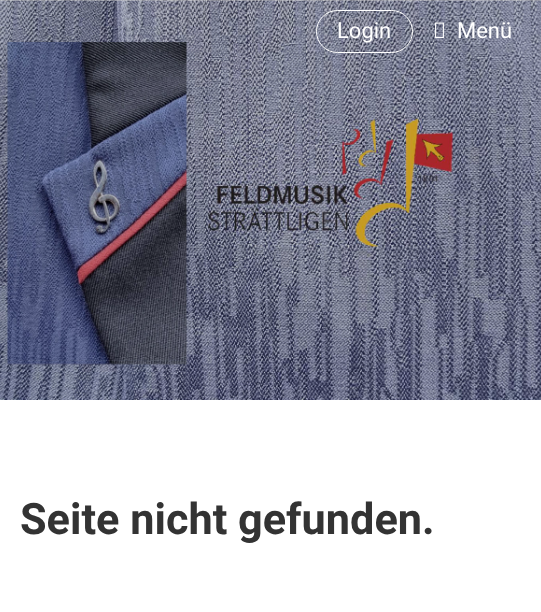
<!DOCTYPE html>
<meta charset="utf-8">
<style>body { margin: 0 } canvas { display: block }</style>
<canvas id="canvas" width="541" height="612"></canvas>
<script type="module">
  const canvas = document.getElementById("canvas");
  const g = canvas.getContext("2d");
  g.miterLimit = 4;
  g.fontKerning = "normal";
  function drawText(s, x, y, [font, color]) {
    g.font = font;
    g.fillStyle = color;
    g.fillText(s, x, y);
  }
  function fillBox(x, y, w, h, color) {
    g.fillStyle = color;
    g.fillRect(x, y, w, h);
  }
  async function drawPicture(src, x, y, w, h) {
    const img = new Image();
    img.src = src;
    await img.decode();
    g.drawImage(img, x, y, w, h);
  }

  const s1 = ["22px Roboto", "#FFFFFF"];
  const s2 = ["bold 43.25px Roboto", "#333333"];

  fillBox(0, 0, 541, 612, "#FFFFFF");
  await drawPicture("pic2.png", 0, 0, 541, 400);
  g.beginPath();
  g.roundRect(316.5, 10.5, 96, 42, 21);
  g.strokeStyle = "#FFFFFF";
  g.stroke();
  drawText("Login", 337, 38, s1);
  await drawPicture("pic1.png", 435, 22, 9, 16);
  drawText("Menü", 457, 38, s1);
  drawText("Seite nicht gefunden.", 20, 534, s2);
</script>
